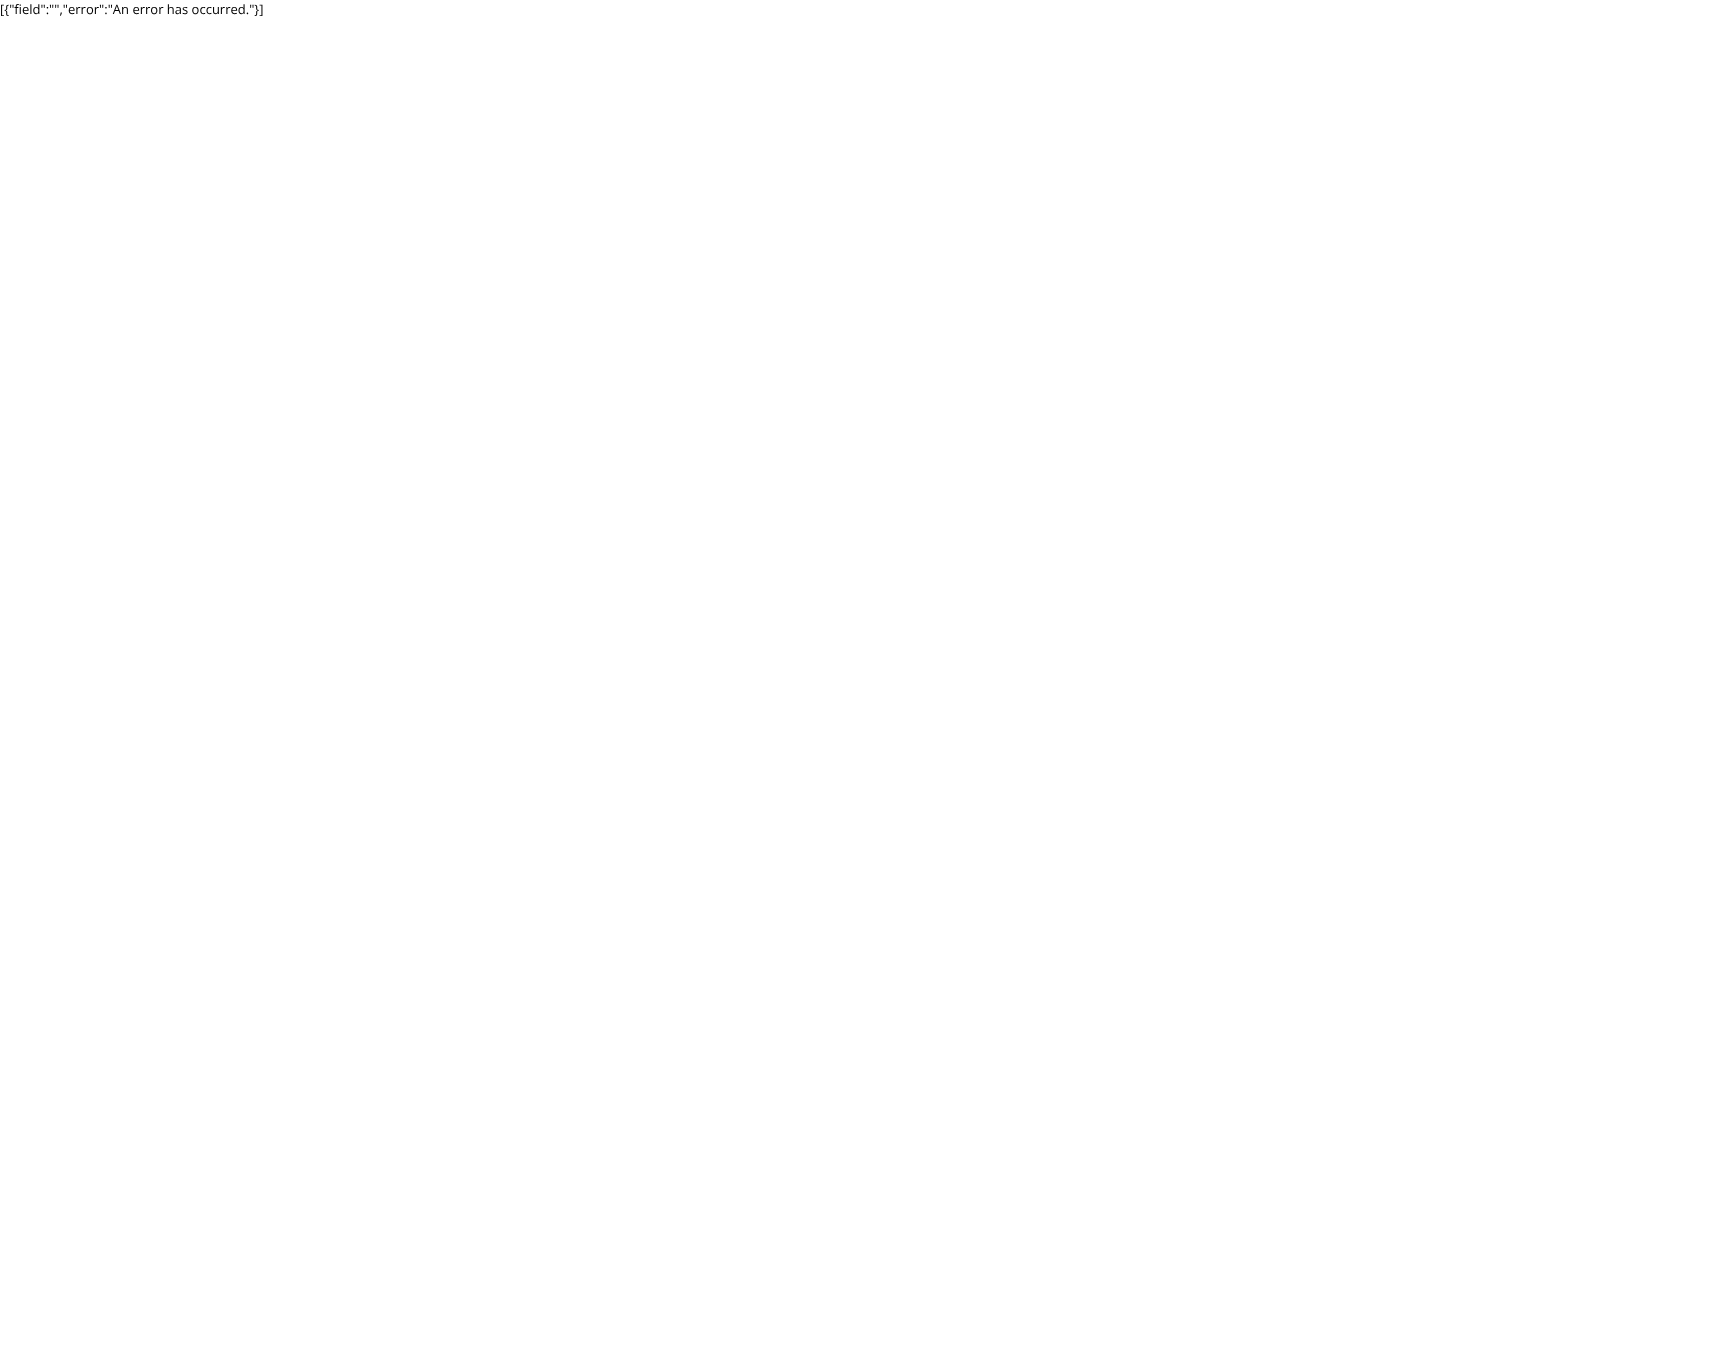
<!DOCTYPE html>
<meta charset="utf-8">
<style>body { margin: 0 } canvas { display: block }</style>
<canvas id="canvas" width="1719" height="1361"></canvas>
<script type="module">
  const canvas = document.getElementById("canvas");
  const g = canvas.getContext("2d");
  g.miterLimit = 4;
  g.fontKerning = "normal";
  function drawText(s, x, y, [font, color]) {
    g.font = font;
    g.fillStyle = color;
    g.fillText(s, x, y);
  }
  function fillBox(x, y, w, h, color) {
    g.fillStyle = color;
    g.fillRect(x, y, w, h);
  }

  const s1 = ["13px Open Sans", "#000000"];

  fillBox(0, 0, 1719, 1361, "#FFFFFF");
  drawText("[{\"field\":\"\",\"error\":\"An error has occurred.\"}]", 0, 14, s1);
</script>
